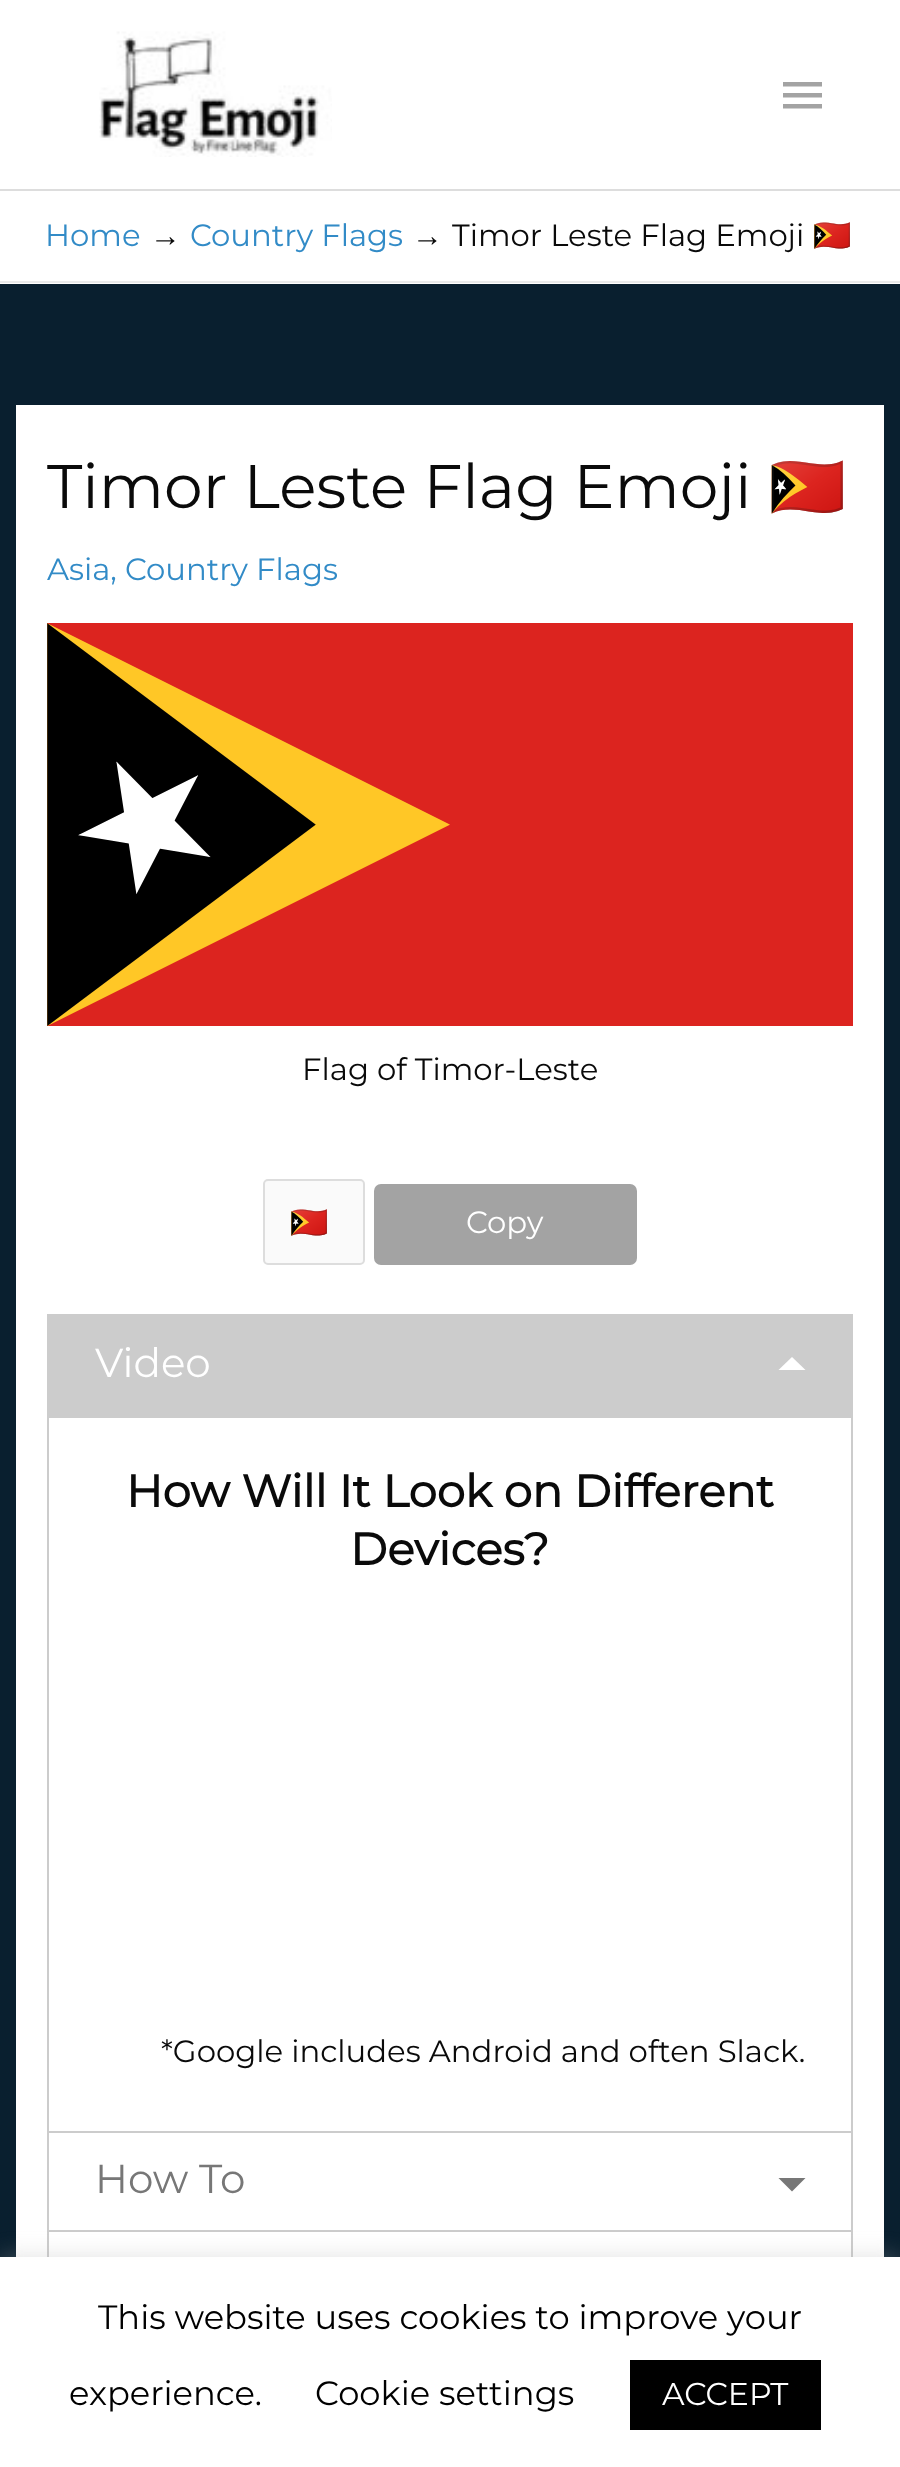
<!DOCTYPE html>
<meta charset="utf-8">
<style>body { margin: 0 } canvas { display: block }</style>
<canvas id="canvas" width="900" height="2467"></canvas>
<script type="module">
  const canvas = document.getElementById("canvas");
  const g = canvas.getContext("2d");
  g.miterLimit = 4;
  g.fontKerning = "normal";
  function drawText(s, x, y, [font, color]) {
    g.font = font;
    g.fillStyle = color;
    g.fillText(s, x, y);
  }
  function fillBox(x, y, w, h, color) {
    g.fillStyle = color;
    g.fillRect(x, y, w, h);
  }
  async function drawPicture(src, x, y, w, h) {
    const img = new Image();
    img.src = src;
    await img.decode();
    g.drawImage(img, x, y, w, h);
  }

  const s1 = ["100 30.75px Montserrat", "#328BC7"];
  const s2 = ["30.75px Liberation Sans", "#0A0A0A"];
  const s3 = ["100 30.75px Montserrat", "#0A0A0A"];
  const s4 = ["30.75px Noto Color Emoji", "#0A0A0A"];
  const s5 = ["100 61.5px Montserrat", "#0A0A0A"];
  const s6 = ["61.5px Noto Color Emoji", "#0A0A0A"];
  const s7 = ["30.75px Noto Color Emoji", "#666666"];
  const s8 = ["100 30.75px Montserrat", "#FFFFFF"];
  const s9 = ["100 40.5px Montserrat", "#FFFFFF"];
  const s10 = ["bold 45px Montserrat", "#0A0A0A"];
  const s11 = ["100 40.5px Montserrat", "#777777"];
  const s12 = ["100 33.75px Montserrat", "#000000"];
  const s13 = ["100 31.5px Montserrat", "#FFFFFF"];

  fillBox(0, 0, 900, 2467, "#091F2F");
  fillBox(0, 0, 900, 189, "#FFFFFF");
  fillBox(0, 189, 900, 2, "#DDDDDD");
  await drawPicture("pic1.png", 99, 31, 233, 126);
  g.fillStyle = "#A3A3A3";
  g.beginPath();
  g.moveTo(783, 82);
  g.lineTo(822, 82);
  g.lineTo(822, 86.5);
  g.lineTo(783, 86.5);
  g.closePath();
  g.moveTo(783, 97.5);
  g.lineTo(783, 93);
  g.lineTo(822, 93);
  g.lineTo(822, 97.5);
  g.closePath();
  g.moveTo(783, 108.5);
  g.lineTo(783, 104);
  g.lineTo(822, 104);
  g.lineTo(822, 108.5);
  g.closePath();
  g.fill();
  fillBox(0, 191, 900, 93, "#FFFFFF");
  fillBox(0, 281, 900, 2, "#EAEAEA");
  drawText("Home", 45, 246, s1);
  drawText("→", 150, 246, s2);
  drawText("Country Flags", 190, 246, s1);
  drawText("→", 412, 246, s2);
  drawText("Timor Leste Flag Emoji", 452, 246, s3);
  drawText("🇹🇱", 813, 246, s4);
  fillBox(16, 405, 868, 1852, "#FFFFFF");
  drawText("Timor Leste Flag Emoji", 47, 508, s5);
  drawText("🇹🇱", 769, 508, s6);
  drawText("Asia, Country Flags", 47, 580, s1);
  await drawPicture("pic2.png", 47, 623, 806, 403);
  drawText("Flag of Timor-Leste", 302, 1080, s3);
  g.fillStyle = "#FAFAFA";
  g.beginPath();
  g.roundRect(264, 1180, 100, 84, 4);
  g.fill();
  g.strokeStyle = "#DDDDDD";
  g.lineWidth = 2;
  g.stroke();
  g.save();
  g.beginPath();
  g.rect(290, 1204, 50, 36);
  g.clip();
  drawText("🇹🇱", 290, 1233, s7);
  g.restore();
  g.fillStyle = "#A3A3A3";
  g.beginPath();
  g.roundRect(375, 1185, 261, 79, 6);
  g.fill();
  g.strokeStyle = "#A3A3A3";
  g.stroke();
  drawText("Copy", 466, 1233, s8);
  fillBox(47, 1314, 806, 104, "#CCCCCC");
  drawText("Video", 95, 1377, s9);
  g.beginPath();
  g.moveTo(805.5, 1370);
  g.lineTo(778.5, 1370);
  g.lineTo(792, 1357);
  g.closePath();
  g.fill();
  fillBox(851, 1418, 2, 839, "#CCCCCC");
  fillBox(47, 2131, 806, 2, "#CCCCCC");
  fillBox(47, 1418, 2, 715, "#CCCCCC");
  drawText("How Will It Look on Different", 126, 1507, s10);
  drawText("Devices?", 350, 1565, s10);
  drawText("*Google includes Android and often Slack.", 161, 2062, s3);
  fillBox(47, 2230, 806, 2, "#CCCCCC");
  fillBox(47, 2133, 2, 124, "#CCCCCC");
  drawText("How To", 95, 2193, s11);
  g.beginPath();
  g.moveTo(778.5, 2178);
  g.lineTo(805.5, 2178);
  g.lineTo(792, 2191.5);
  g.closePath();
  g.fill();
  g.fillStyle = "rgba(172, 171, 171, 0.3)";
  g.filter = "blur(11px)";
  g.beginPath();
  g.rect(0, 2255, 900, 211);
  g.fill();
  g.filter = "none";
  fillBox(0, 2257, 900, 210, "#FFFFFF");
  drawText("This website uses cookies to improve your", 98, 2329, s12);
  drawText("experience.", 69, 2405, s12);
  drawText("Cookie settings", 315, 2405, s12);
  fillBox(630, 2360, 191, 70, "#000000");
  drawText("ACCEPT", 662, 2405, s13);
</script>
